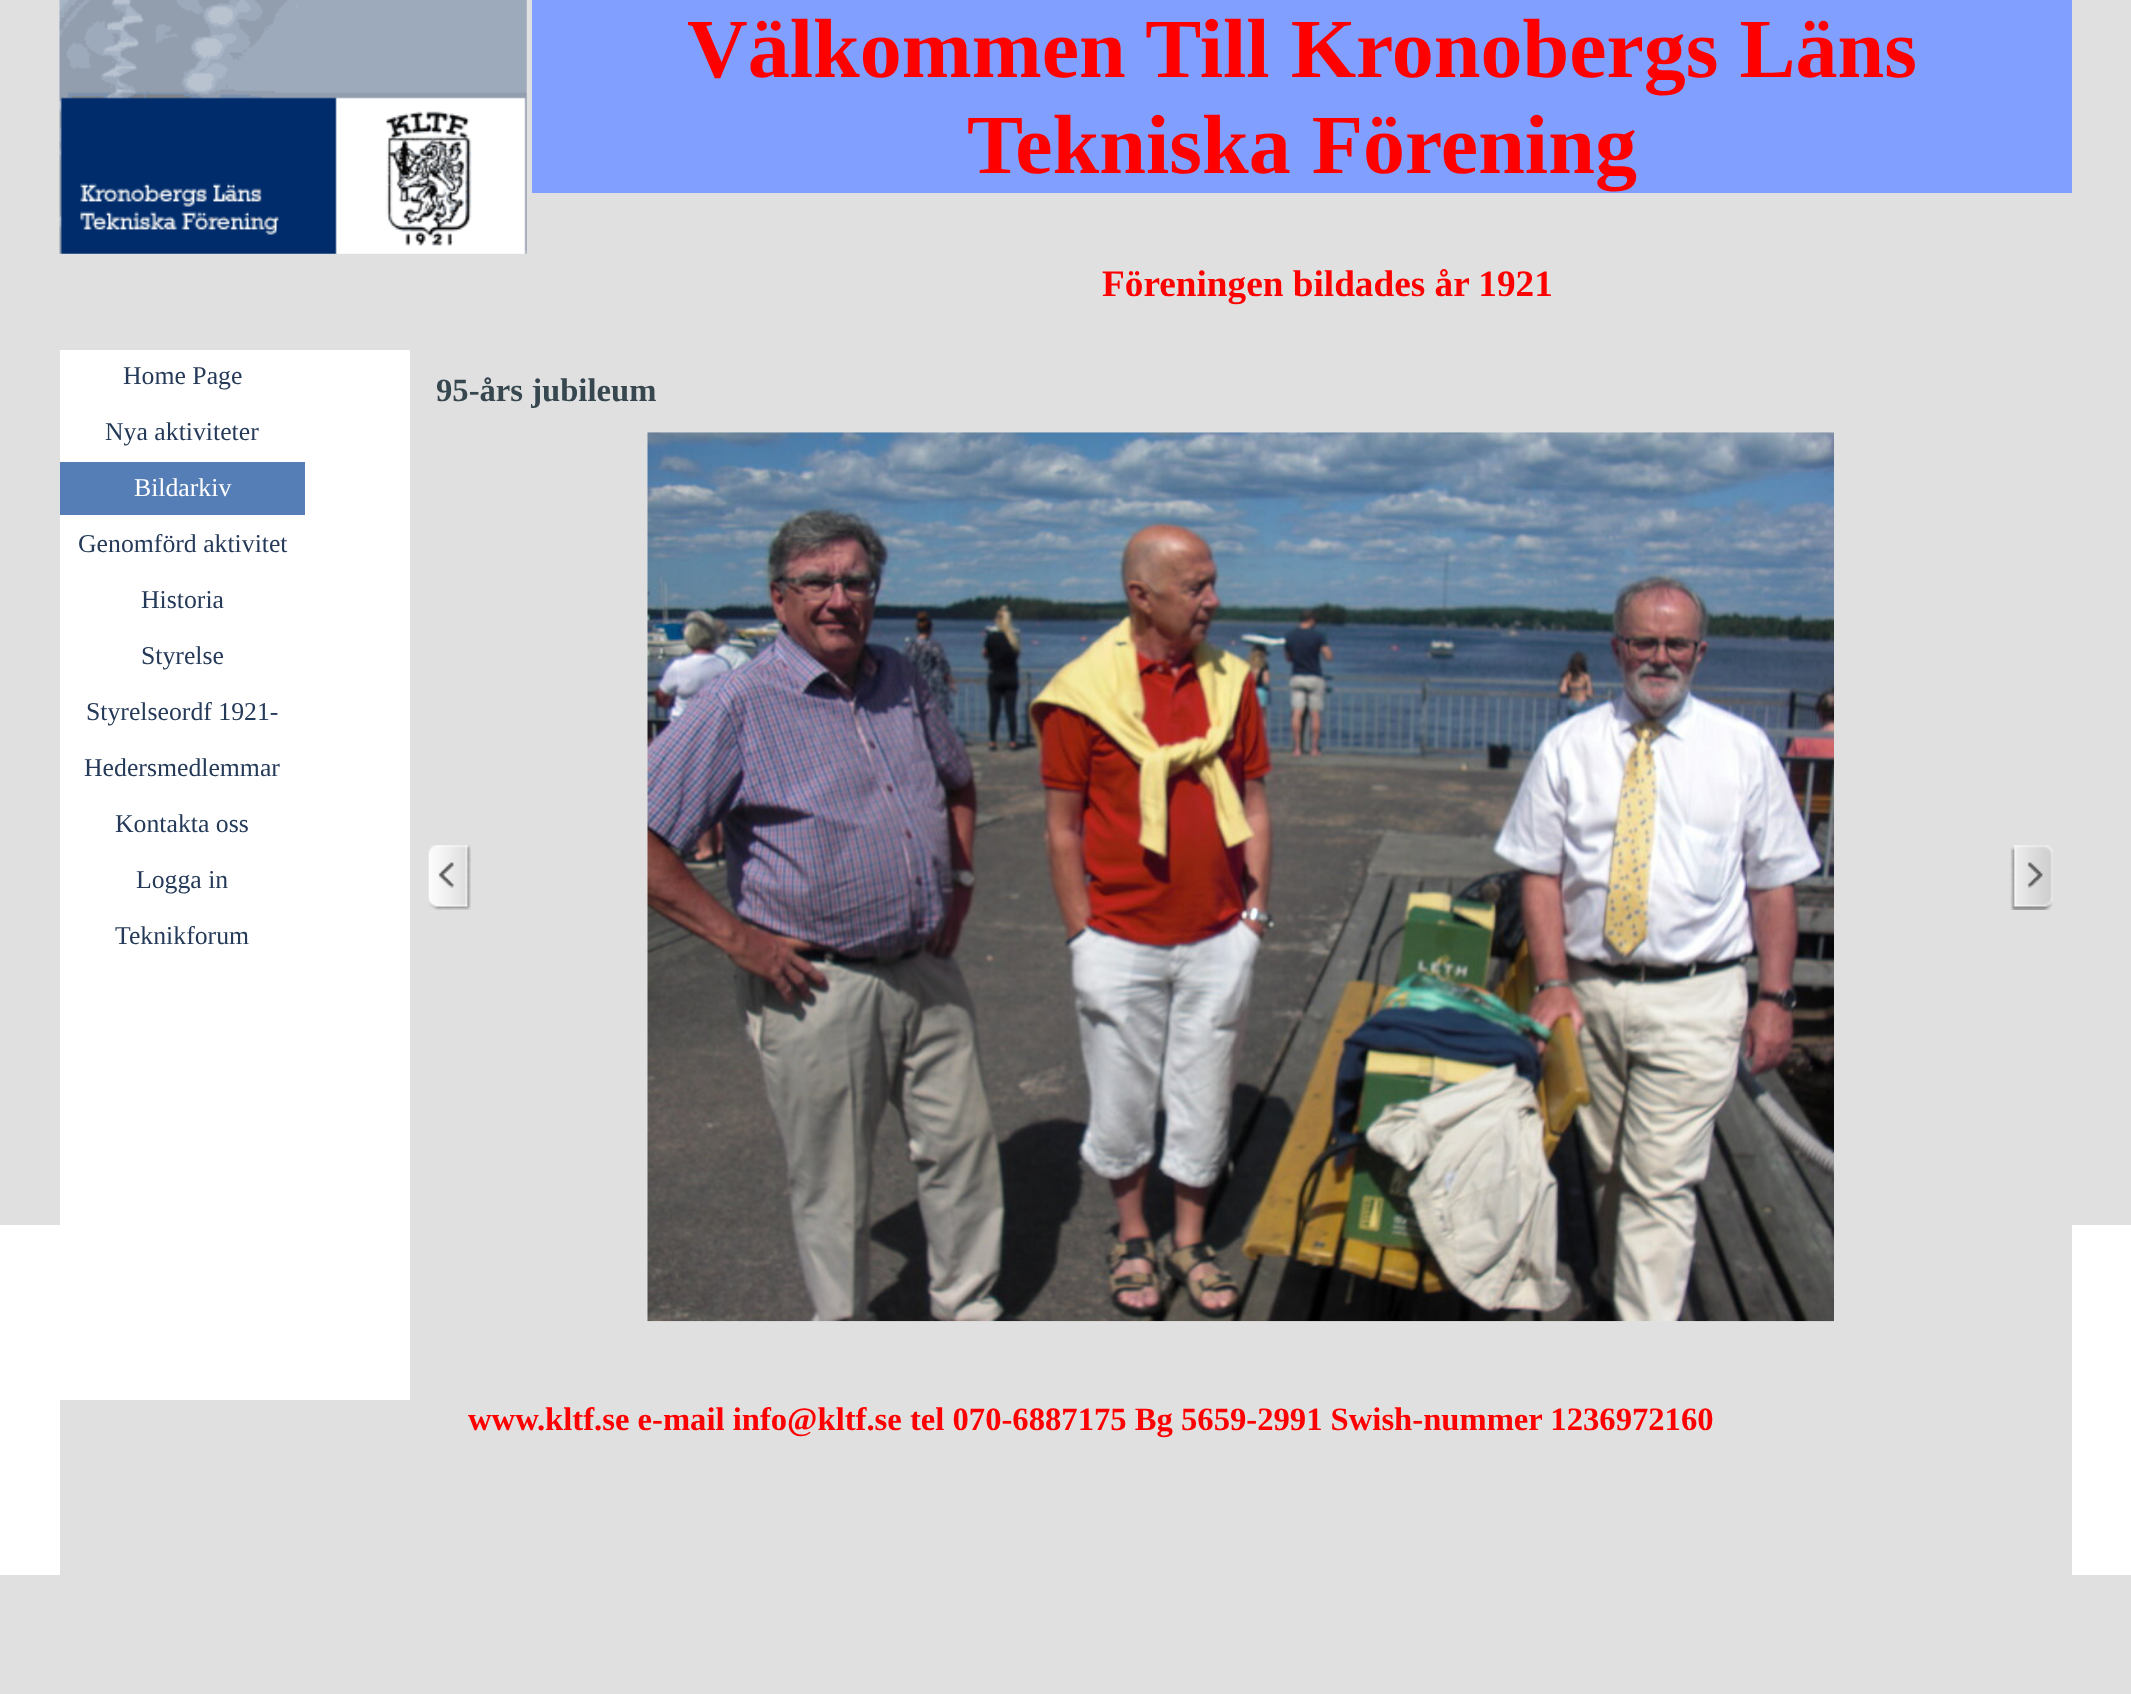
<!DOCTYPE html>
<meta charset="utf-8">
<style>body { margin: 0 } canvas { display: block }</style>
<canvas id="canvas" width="2131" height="1694"></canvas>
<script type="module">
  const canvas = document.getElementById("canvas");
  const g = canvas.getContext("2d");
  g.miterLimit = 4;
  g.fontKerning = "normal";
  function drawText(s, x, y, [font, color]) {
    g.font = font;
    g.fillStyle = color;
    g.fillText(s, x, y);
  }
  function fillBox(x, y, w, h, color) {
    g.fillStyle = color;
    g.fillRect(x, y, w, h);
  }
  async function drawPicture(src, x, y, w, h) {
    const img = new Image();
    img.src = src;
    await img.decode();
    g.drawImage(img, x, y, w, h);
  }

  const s1 = ["bold 84px Liberation Serif", "#FF0000"];
  const s2 = ["bold 37.25px Liberation Serif", "#FF0000"];
  const s3 = ["25.75px Liberation Serif", "#253A58"];
  const s4 = ["25.75px Liberation Serif", "#FFFFFF"];
  const s5 = ["bold 32.65px Liberation Serif", "#36474F"];
  const s6 = ["bold 32.65px Liberation Serif", "#FF0000"];

  fillBox(0, 0, 2131, 1694, "#E0E0E0");
  await drawPicture("pic1.png", 59, 0, 468, 254);
  fillBox(532, 0, 1540, 193, "#809FFF");
  drawText("Välkommen Till Kronobergs Läns", 687, 77, s1);
  drawText("Tekniska Förening", 967, 173, s1);
  drawText("Föreningen bildades år 1921", 1102, 296, s2);
  fillBox(60, 350, 350, 875, "#FFFFFF");
  drawText("Home Page", 123, 384, s3);
  drawText("Nya aktiviteter", 105, 440, s3);
  fillBox(60, 462, 245, 53, "#567EB6");
  drawText("Bildarkiv", 134, 496, s4);
  drawText("Genomförd aktivitet", 78, 552, s3);
  drawText("Historia", 141, 608, s3);
  drawText("Styrelse", 141, 664, s3);
  drawText("Styrelseordf 1921-", 86, 720, s3);
  drawText("Hedersmedlemmar", 84, 776, s3);
  drawText("Kontakta oss", 115, 832, s3);
  drawText("Logga in", 136, 888, s3);
  drawText("Teknikforum", 115, 944, s3);
  drawText("95-års jubileum", 436, 401, s5);
  await drawPicture("pic2.png", 428, 845, 43, 65);
  fillBox(0, 1225, 2131, 350, "#FFFFFF");
  fillBox(410, 1225, 1662, 175, "#E0E0E0");
  await drawPicture("pic3.png", 647, 432, 1187, 890);
  await drawPicture("pic4.png", 2010, 845, 43, 65);
  fillBox(60, 1400, 2012, 175, "#E0E0E0");
  drawText("www.kltf.se e-mail info@kltf.se tel 070-6887175 Bg 5659-2991 Swish-nummer 1236972160", 468, 1430, s6);
</script>
